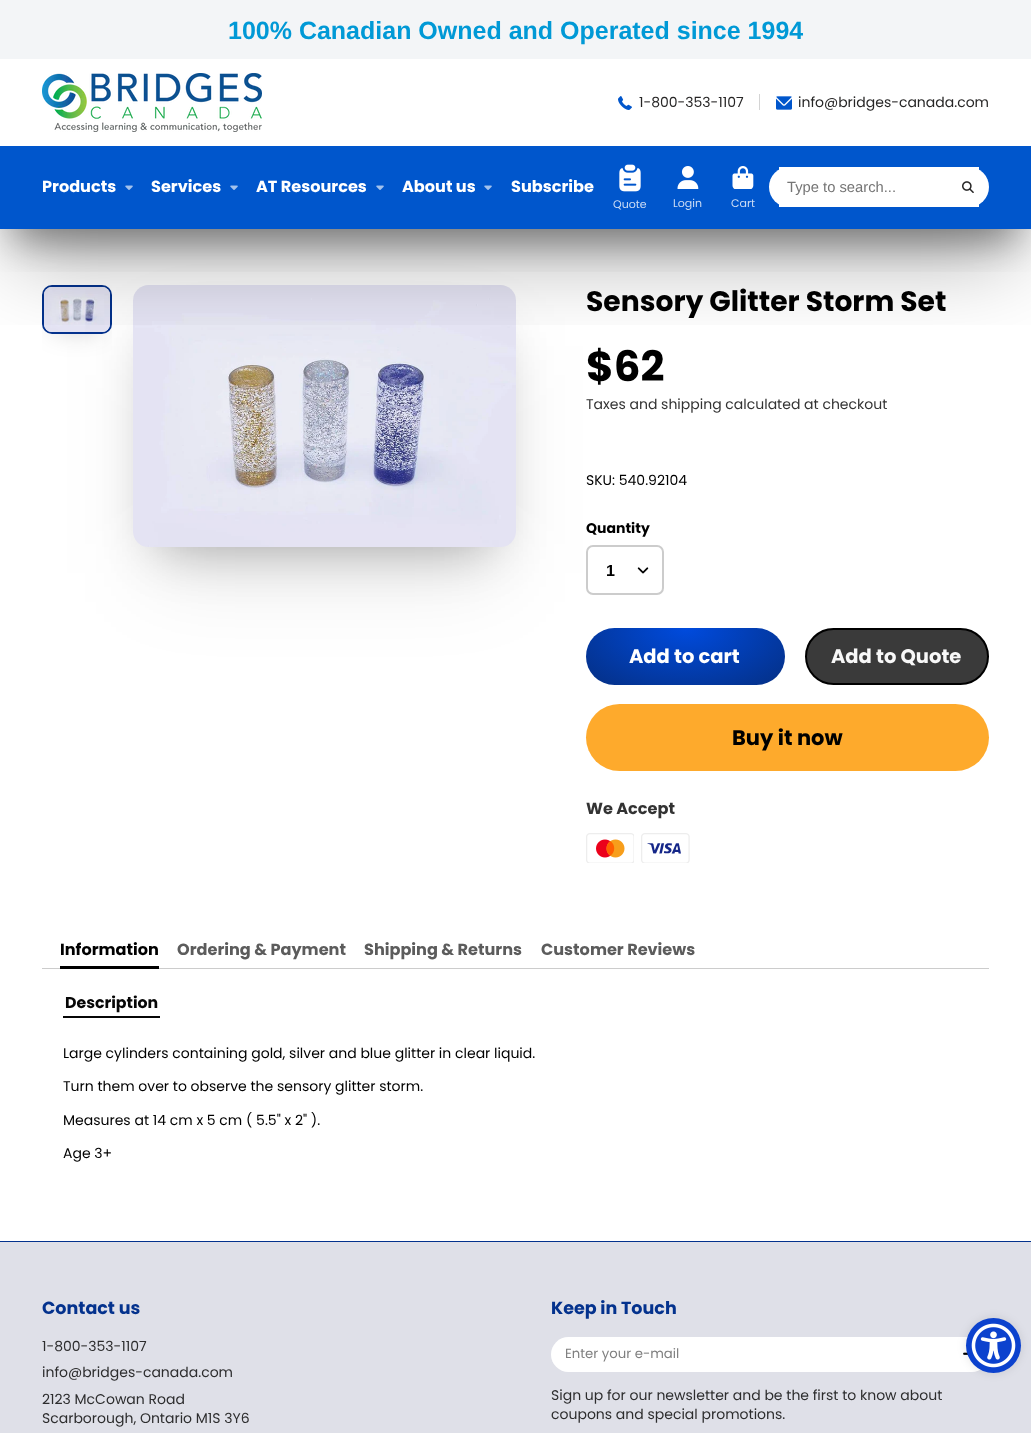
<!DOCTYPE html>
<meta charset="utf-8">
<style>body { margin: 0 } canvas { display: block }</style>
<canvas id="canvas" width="1031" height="1433"></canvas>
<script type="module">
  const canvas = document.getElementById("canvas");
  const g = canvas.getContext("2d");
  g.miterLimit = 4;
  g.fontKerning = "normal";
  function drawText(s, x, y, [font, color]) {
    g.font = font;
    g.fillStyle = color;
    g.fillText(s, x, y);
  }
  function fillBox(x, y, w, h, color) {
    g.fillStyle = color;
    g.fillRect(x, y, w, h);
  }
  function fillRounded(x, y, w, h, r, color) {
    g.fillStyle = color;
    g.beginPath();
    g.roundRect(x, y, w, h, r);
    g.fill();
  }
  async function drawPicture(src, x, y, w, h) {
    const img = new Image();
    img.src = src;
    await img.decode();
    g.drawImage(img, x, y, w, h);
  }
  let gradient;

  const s1 = ["bold 25px Liberation Sans", "#0099D6"];
  const s2 = ["14px Poppins", "#272626"];
  const s3 = ["bold 16.1px Poppins", "#FFFFFF"];
  const s4 = ["14.75px Liberation Sans", "#757575"];
  const s5 = ["11px Poppins", "#CCDDF5"];
  const s6 = ["bold 28.2px Poppins", "#000000"];
  const s7 = ["bold 42px Poppins", "#000000"];
  const s8 = ["14px Poppins", "#333333"];
  const s9 = ["14px Poppins", "#000000"];
  const s10 = ["bold 14px Poppins", "#000000"];
  const s11 = ["bold 16.1px Liberation Sans", "#000000"];
  const s12 = ["bold 19.5px Poppins", "#FFFFFF"];
  const s13 = ["bold 19.5px Poppins", "#F8F8F8"];
  const s14 = ["bold 21px Poppins", "#000000"];
  const s15 = ["bold 16.1px Poppins", "#333333"];
  const s16 = ["bold 16.1px Poppins", "#000000"];
  const s17 = ["bold 16.1px Poppins", "#5C5C5C"];
  const s18 = ["bold 15.75px Poppins", "#060606"];
  const s19 = ["bold 17.5px Poppins", "#04328D"];
  const s20 = ["14px Poppins", "#2D2D2E"];
  const s21 = ["13.25px Poppins", "#808080"];

  fillBox(0, 0, 1031, 1433, "#FFFFFF");
  g.save();
  g.beginPath();
  g.rect(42, 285, 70, 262);
  g.clip();
  g.fillStyle = "rgba(0, 0, 0, 0.3)";
  g.filter = "blur(14px)";
  g.beginPath();
  g.rect(56, 306, 42, 21);
  g.fill();
  g.filter = "none";
  g.restore();
  g.beginPath();
  g.roundRect(43, 286, 68, 47, 9);
  g.strokeStyle = "#04328D";
  g.lineWidth = 2;
  g.stroke();
  await drawPicture("pic10.png", 44, 287, 66, 45);
  g.fillStyle = "rgba(0, 0, 0, 0.3)";
  g.filter = "blur(26px)";
  g.beginPath();
  g.rect(159, 338, 331, 209);
  g.fill();
  g.filter = "none";
  g.fillStyle = "rgba(0, 0, 0, 0.1)";
  g.filter = "blur(44px)";
  g.beginPath();
  g.rect(151, 346, 348, 227);
  g.fill();
  g.filter = "none";
  await drawPicture("pic9.png", 133, 285, 383, 262);
  g.save();
  g.beginPath();
  g.rect(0, 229, 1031, 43);
  g.clip();
  g.fillStyle = "rgba(0, 0, 0, 0.4)";
  g.filter = "blur(19px)";
  g.beginPath();
  g.rect(14, 99, 1003, 142);
  g.fill();
  g.filter = "none";
  g.restore();
  g.save();
  g.beginPath();
  g.rect(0, 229, 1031, 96);
  g.clip();
  g.fillStyle = "rgba(0, 0, 0, 0.3)";
  g.filter = "blur(44px)";
  g.beginPath();
  g.rect(14, 117, 1003, 142);
  g.fill();
  g.filter = "none";
  g.restore();
  fillBox(0, 0, 1031, 59, "#F3F5F7");
  drawText("100% Canadian Owned and Operated since 1994", 228, 39, s1);
  await drawPicture("pic1.png", 42, 73, 220, 59);
  await drawPicture("pic2.png", 618, 96, 14, 14);
  drawText("1-800-353-1107", 639, 107, s2);
  fillBox(759, 94, 1, 16, "#D4D4D4");
  await drawPicture("pic3.png", 776, 96, 16, 14);
  drawText("info@bridges-canada.com", 798, 107, s2);
  fillBox(0, 146, 1031, 83, "#0056CC");
  drawText("Products", 42, 192, s3);
  await drawPicture("pic4.png", 125, 185, 8, 5);
  drawText("Services", 151, 192, s3);
  await drawPicture("pic4.png", 230, 185, 8, 5);
  drawText("AT Resources", 256, 192, s3);
  await drawPicture("pic4.png", 376, 185, 8, 5);
  drawText("About us", 402, 192, s3);
  await drawPicture("pic4.png", 484, 185, 8, 5);
  drawText("Subscribe", 511, 192, s3);
  fillBox(779, 167, 200, 40, "#FFFFFF");
  fillRounded(769, 167, 220, 40, 20, "#FFFFFF");
  drawText("Type to search...", 787, 192, s4);
  await drawPicture("pic5.png", 962, 181, 12, 12);
  await drawPicture("pic6.png", 619, 164, 22, 28);
  drawText("Quote", 613, 208, s5);
  await drawPicture("pic7.png", 677, 166, 22, 23);
  drawText("Login", 673, 207, s5);
  await drawPicture("pic8.png", 732, 166, 22, 23);
  drawText("Cart", 731, 207, s5);
  g.save();
  g.beginPath();
  g.rect(586, 285, 403, 33);
  g.clip();
  drawText("Sensory Glitter Storm Set", 586, 311, s6);
  g.restore();
  drawText("$62", 586, 381, s7);
  drawText("Taxes and shipping calculated at checkout", 586, 409, s8);
  drawText("SKU: 540.92104", 586, 485, s9);
  drawText("Quantity", 586, 533, s10);
  g.beginPath();
  g.roundRect(587, 546, 76, 48, 6);
  g.strokeStyle = "#CCCCCC";
  g.stroke();
  drawText("1", 606, 576, s11);
  await drawPicture("pic11.png", 637, 567, 12, 7);
  gradient = g.createRadialGradient(686, 1093.19, 0, 686, 1093.19, 141);
  gradient.addColorStop(0, "#004BDE");
  gradient.addColorStop(0.9, "#04328D");
  g.fillStyle = gradient;
  g.beginPath();
  g.roundRect(586, 628, 199, 57, 28.5);
  g.save();
  g.clip();
  g.scale(1, 81 / 141);
  g.fillRect(0, 0, 1031, 2495);
  g.restore();
  drawText("Add to cart", 629, 663, s12);
  g.fillStyle = "#3A3A3A";
  g.beginPath();
  g.roundRect(806, 629, 182, 55, 27.5);
  g.fill();
  g.strokeStyle = "#000000";
  g.stroke();
  drawText("Add to Quote", 831, 663, s13);
  fillRounded(586, 704, 403, 67, 33.5, "#FEAA2C");
  drawText("Buy it now", 732, 745, s14);
  drawText("We Accept", 586, 814, s15);
  await drawPicture("pic12.png", 586, 833, 48, 30);
  await drawPicture("pic13.png", 641, 833, 49, 30);
  fillBox(42, 968, 947, 1, "#CCCCCC");
  fillBox(60, 966, 99, 3, "#000000");
  drawText("Information", 60, 955, s16);
  drawText("Ordering & Payment", 177, 955, s17);
  drawText("Shipping & Returns", 364, 955, s17);
  drawText("Customer Reviews", 541, 955, s17);
  fillBox(63, 1016, 97, 2, "#060606");
  drawText("Description", 65, 1008, s18);
  drawText("Large cylinders containing gold, silver and blue glitter in clear liquid.", 63, 1058, s9);
  drawText("Turn them over to observe the sensory glitter storm.", 63, 1091, s9);
  drawText("Measures at 14 cm x 5 cm ( 5.5\" x 2\" ).", 63, 1125, s9);
  drawText("Age 3+", 63, 1158, s9);
  fillBox(0, 1242, 1031, 191, "#DFE0E8");
  fillBox(0, 1241, 1031, 1, "#04328D");
  drawText("Contact us", 42, 1314, s19);
  drawText("1-800-353-1107", 42, 1351, s20);
  drawText("info@bridges-canada.com", 42, 1377, s20);
  drawText("2123 McCowan Road", 42, 1404, s20);
  drawText("Scarborough, Ontario M1S 3Y6", 42, 1423, s20);
  drawText("Keep in Touch", 551, 1314, s19);
  fillRounded(551, 1337, 438, 35, 17.5, "#FFFFFF");
  drawText("Enter your e-mail", 565, 1358, s21);
  await drawPicture("pic14.png", 963, 1352, 8, 8);
  drawText("Sign up for our newsletter and be the first to know about", 551, 1400, s20);
  drawText("coupons and special promotions.", 551, 1419, s20);
  g.fillStyle = "rgba(0, 0, 0, 0.1)";
  g.filter = "blur(5px)";
  g.beginPath();
  g.roundRect(966, 1318, 55, 55, 27.5);
  g.fill();
  g.filter = "none";
  g.fillStyle = "#0C42CE";
  g.beginPath();
  g.arc(993.5, 1345.5, 27.5, 0, Math.PI * 2);
  g.fill();
  await drawPicture("pic15.png", 971, 1323, 45, 45);
</script>
